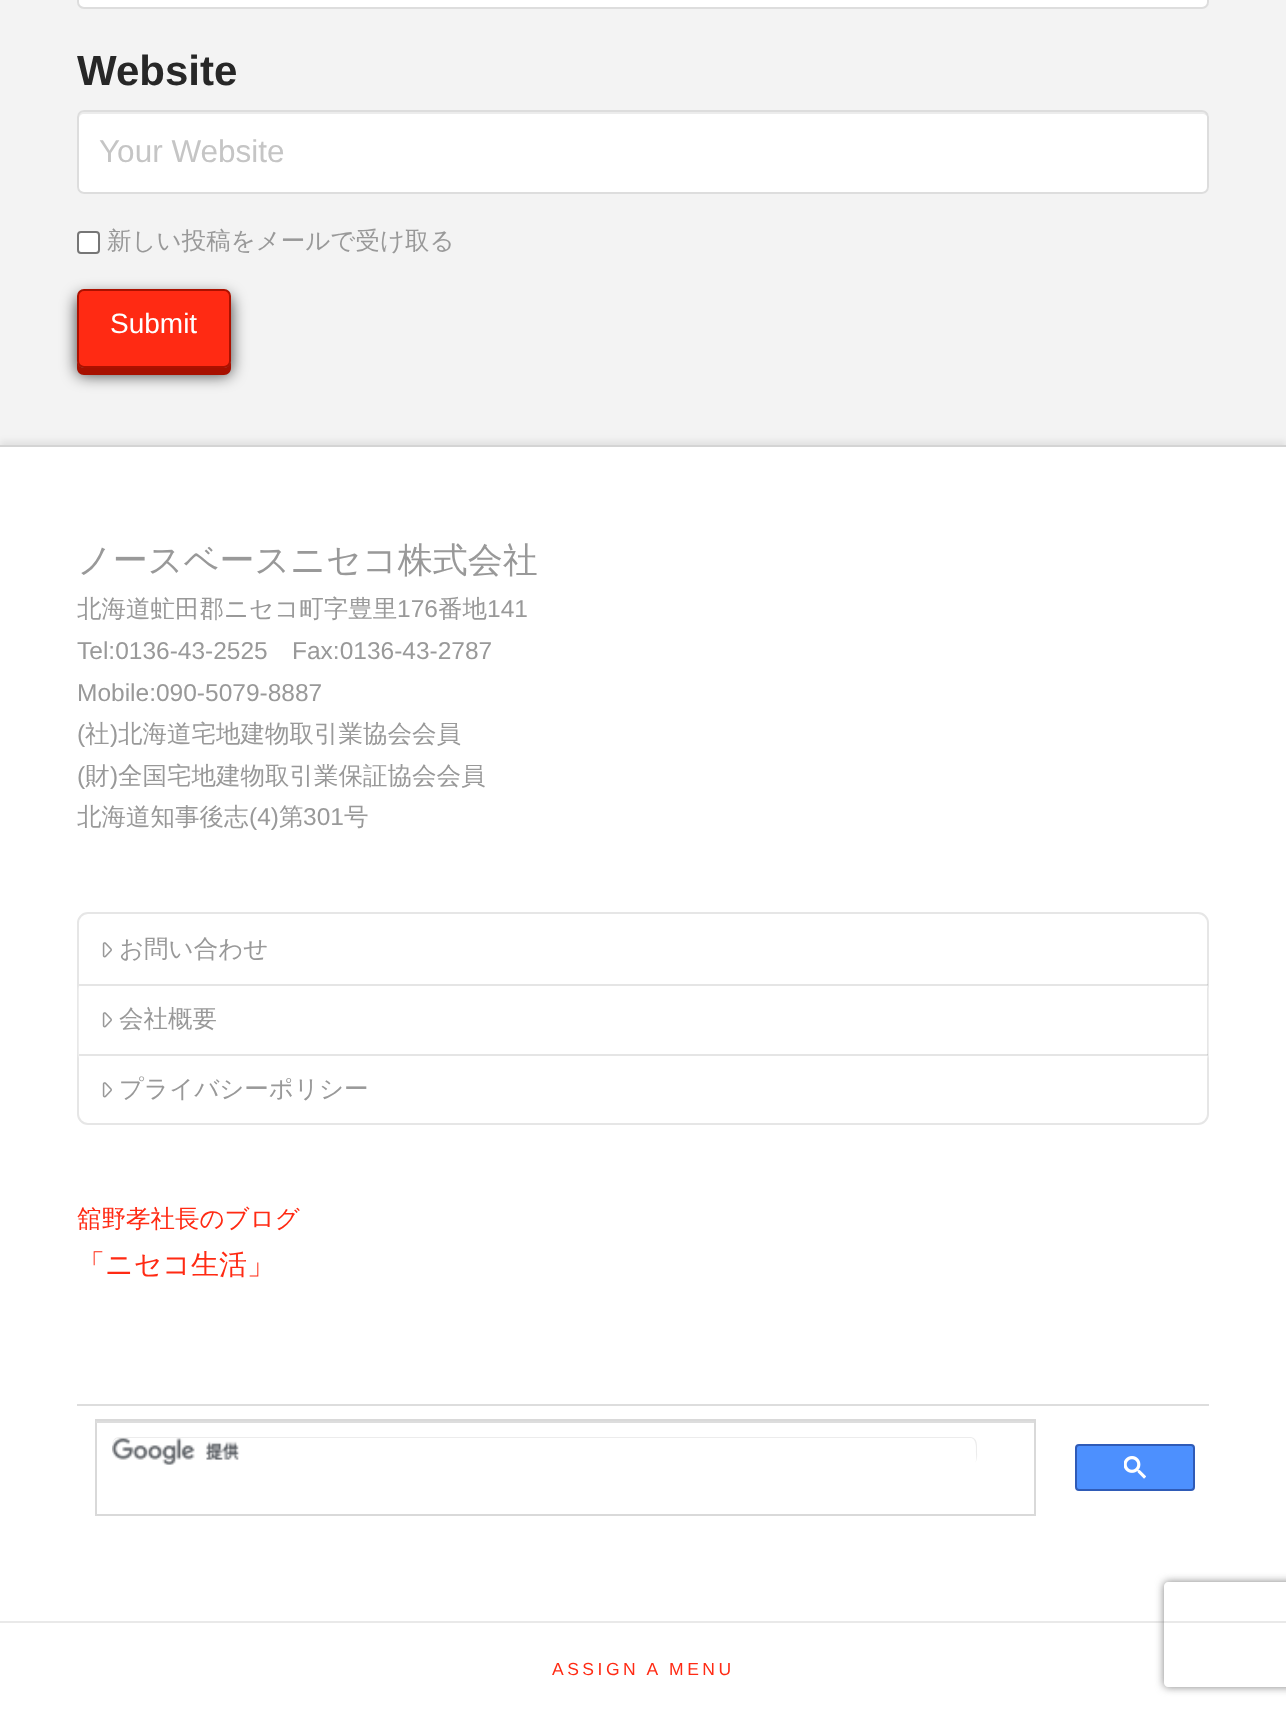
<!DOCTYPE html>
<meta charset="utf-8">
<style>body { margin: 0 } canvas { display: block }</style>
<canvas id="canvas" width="1286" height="1711"></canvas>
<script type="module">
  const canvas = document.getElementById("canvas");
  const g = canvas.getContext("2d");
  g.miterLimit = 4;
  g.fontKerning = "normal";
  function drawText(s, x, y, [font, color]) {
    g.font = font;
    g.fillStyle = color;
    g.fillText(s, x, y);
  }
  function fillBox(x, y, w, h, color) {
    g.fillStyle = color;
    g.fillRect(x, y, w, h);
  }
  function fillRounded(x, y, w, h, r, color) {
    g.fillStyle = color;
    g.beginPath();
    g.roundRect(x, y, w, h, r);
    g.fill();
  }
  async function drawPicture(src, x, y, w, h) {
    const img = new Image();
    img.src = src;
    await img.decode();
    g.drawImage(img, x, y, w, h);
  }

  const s1 = ["bold 42px Liberation Sans", "#272727"];
  const s2 = ["31.5px Liberation Sans", "#C5C5C5"];
  const s3 = ["500 24.5px WenQuanYi Zen Hei", "#999999"];
  const s4 = ["28px Liberation Sans", "#FFFFFF"];
  const s5 = ["500 35px WenQuanYi Zen Hei", "#999999"];
  const s6 = ["24.5px Liberation Sans", "#999999"];
  const s7 = ["500 24.5px WenQuanYi Zen Hei", "#FF2A13"];
  const s8 = ["500 28px WenQuanYi Zen Hei", "#FF2A13"];
  const s9 = ["17.5px Liberation Sans", "#FF2A13"];

  fillBox(0, 0, 1286, 1711, "#F3F3F3");
  g.fillStyle = "#FFFFFF";
  g.beginPath();
  g.roundRect(78, -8, 1130, 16, 6);
  g.fill();
  g.strokeStyle = "#DDDDDD";
  g.lineWidth = 2;
  g.stroke();
  drawText("Website", 77, 85, s1);
  fillRounded(77, 110, 1132, 84, 7, "#FFFFFF");
  g.fillStyle = "#ECECEC";
  g.beginPath();
  g.moveTo(84, 114);
  g.lineTo(1202, 114);
  g.bezierCurveTo(1205, 114, 1208, 116, 1208, 119);
  g.lineTo(1208, 117);
  g.bezierCurveTo(1208, 114, 1206, 112, 1203, 112);
  g.lineTo(84, 112);
  g.bezierCurveTo(81, 112, 79, 114, 79, 117);
  g.lineTo(79, 119);
  g.bezierCurveTo(79, 116, 81, 114, 84, 114);
  g.closePath();
  g.fill();
  g.beginPath();
  g.roundRect(78, 111, 1130, 82, 6);
  g.stroke();
  drawText("Your Website", 99, 162, s2);
  g.fillStyle = "#FFFFFF";
  g.beginPath();
  g.roundRect(78, 232, 21, 21, 3);
  g.fill();
  g.strokeStyle = "#767676";
  g.stroke();
  drawText("新しい投稿をメールで受け取る", 107, 249, s3);
  g.fillStyle = "rgba(0, 0, 0, 0.75)";
  g.filter = "blur(8px)";
  g.beginPath();
  g.roundRect(77, 296, 154, 79, 7);
  g.fill();
  g.filter = "none";
  g.fillStyle = "#A71000";
  g.beginPath();
  g.moveTo(77, 360);
  g.lineTo(77, 368);
  g.bezierCurveTo(77, 372, 80, 375, 84, 375);
  g.lineTo(224, 375);
  g.bezierCurveTo(228, 375, 231, 372, 231, 368);
  g.lineTo(231, 360);
  g.bezierCurveTo(231, 364, 228, 368, 224, 368);
  g.lineTo(84, 368);
  g.bezierCurveTo(80, 368, 77, 364, 77, 360);
  g.closePath();
  g.fill();
  g.fillStyle = "#FF2A13";
  g.beginPath();
  g.roundRect(78, 290, 152, 77, 6);
  g.fill();
  g.strokeStyle = "#AC1100";
  g.stroke();
  drawText("Submit", 110, 333, s4);
  g.fillStyle = "rgba(0, 0, 0, 0.07)";
  g.filter = "blur(3px)";
  g.beginPath();
  g.rect(0, 441, 1286, 1176);
  g.fill();
  g.filter = "none";
  fillBox(0, 447, 1286, 1174, "#FFFFFF");
  fillBox(0, 445, 1286, 2, "#D4D4D4");
  drawText("ノースベースニセコ株式会社", 77, 572, s5);
  drawText("北海道虻田郡ニセコ町字豊里", 77, 617, s3);
  drawText("176", 397, 617, s6);
  drawText("番地", 438, 617, s3);
  drawText("141", 487, 617, s6);
  drawText("Tel:0136-43-2525", 77, 659, s6);
  drawText("Fax:0136-43-2787", 292, 659, s6);
  drawText("Mobile:090-5079-8887", 77, 701, s6);
  drawText("(", 77, 742, s6);
  drawText("社", 85, 742, s3);
  drawText(")", 110, 742, s6);
  drawText("北海道宅地建物取引業協会会員", 118, 742, s3);
  drawText("(", 77, 784, s6);
  drawText("財", 85, 784, s3);
  drawText(")", 110, 784, s6);
  drawText("全国宅地建物取引業保証協会会員", 118, 784, s3);
  drawText("北海道知事後志", 77, 825, s3);
  drawText("(4)", 249, 825, s6);
  drawText("第", 279, 825, s3);
  drawText("301", 303, 825, s6);
  drawText("号", 344, 825, s3);
  g.beginPath();
  g.roundRect(78, 913, 1130, 211, 10);
  g.strokeStyle = "#E6E6E6";
  g.stroke();
  g.save();
  g.beginPath();
  g.roundRect(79, 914, 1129, 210, 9);
  g.clip();
  g.beginPath();
  g.moveTo(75, 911);
  g.lineTo(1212, 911);
  g.lineTo(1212, 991);
  g.lineTo(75, 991);
  g.closePath();
  g.moveTo(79, 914);
  g.lineTo(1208, 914);
  g.lineTo(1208, 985);
  g.lineTo(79, 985);
  g.closePath();
  g.clip("evenodd");
  g.fillStyle = "rgba(255, 255, 255, 0.95)";
  g.filter = "blur(1px)";
  g.beginPath();
  g.rect(79, 915, 1129, 72);
  g.fill();
  g.filter = "none";
  g.restore();
  fillBox(79, 984, 1129, 2, "rgba(0, 0, 0, 0.1)");
  await drawPicture("pic1.png", 102, 942, 10, 16);
  drawText("お問い合わせ", 119, 957, s3);
  g.save();
  g.beginPath();
  g.moveTo(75, 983);
  g.lineTo(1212, 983);
  g.lineTo(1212, 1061);
  g.lineTo(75, 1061);
  g.closePath();
  g.moveTo(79, 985);
  g.lineTo(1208, 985);
  g.lineTo(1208, 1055);
  g.lineTo(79, 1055);
  g.closePath();
  g.clip("evenodd");
  g.fillStyle = "rgba(255, 255, 255, 0.95)";
  g.filter = "blur(1px)";
  g.beginPath();
  g.rect(79, 987, 1129, 70);
  g.fill();
  g.filter = "none";
  g.restore();
  fillBox(79, 1054, 1129, 2, "rgba(0, 0, 0, 0.1)");
  await drawPicture("pic1.png", 102, 1012, 10, 16);
  drawText("会社概要", 119, 1027, s3);
  await drawPicture("pic1.png", 102, 1082, 10, 16);
  drawText("プライバシーポリシー", 119, 1097, s3);
  drawText("舘野孝社長のブログ", 77, 1227, s7);
  drawText("「ニセコ生活」", 77, 1274, s8);
  fillBox(77, 1404, 1132, 2, "#DDDDDD");
  g.fillStyle = "#4D90FE";
  g.beginPath();
  g.roundRect(1076, 1445, 118, 45, 3);
  g.fill();
  g.strokeStyle = "#2F5BB7";
  g.stroke();
  await drawPicture("pic2.png", 1124, 1456, 22, 23);
  g.strokeStyle = "#D9D9D9";
  g.strokeRect(96, 1420, 939, 95);
  fillBox(96, 1421, 938, 2, "#DDDDDD");
  await drawPicture("pic3.png", 112, 1438, 128, 27);
  g.fillStyle = "#ECECEC";
  g.beginPath();
  g.moveTo(119, 1438);
  g.lineTo(970, 1438);
  g.bezierCurveTo(977, 1438, 976, 1449, 976, 1453);
  g.bezierCurveTo(976, 1456, 977, 1460, 975, 1463);
  g.bezierCurveTo(978, 1459, 977, 1455, 977, 1451);
  g.bezierCurveTo(977, 1446, 978, 1438, 971, 1437);
  g.lineTo(119, 1437);
  g.bezierCurveTo(114, 1437, 112, 1442, 112, 1446);
  g.bezierCurveTo(112, 1442, 115, 1438, 119, 1438);
  g.closePath();
  g.fill();
  fillBox(0, 1623, 1286, 88, "#FFFFFF");
  fillBox(0, 1621, 1286, 2, "#E9E9E9");
  g.letterSpacing = "3.5px";
  drawText("ASSIGN A MENU", 552, 1675, s9);
  g.save();
  g.beginPath();
  g.moveTo(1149, 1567);
  g.lineTo(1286, 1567);
  g.lineTo(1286, 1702);
  g.lineTo(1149, 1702);
  g.closePath();
  g.moveTo(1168, 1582);
  g.lineTo(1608, 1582);
  g.bezierCurveTo(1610, 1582, 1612, 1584, 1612, 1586);
  g.lineTo(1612, 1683);
  g.bezierCurveTo(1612, 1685, 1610, 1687, 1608, 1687);
  g.lineTo(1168, 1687);
  g.bezierCurveTo(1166, 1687, 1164, 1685, 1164, 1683);
  g.lineTo(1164, 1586);
  g.bezierCurveTo(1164, 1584, 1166, 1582, 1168, 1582);
  g.closePath();
  g.clip("evenodd");
  g.fillStyle = "#808080";
  g.filter = "blur(4.5px)";
  g.beginPath();
  g.roundRect(1164, 1582, 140, 105, 4);
  g.fill();
  g.filter = "none";
  g.restore();
</script>
